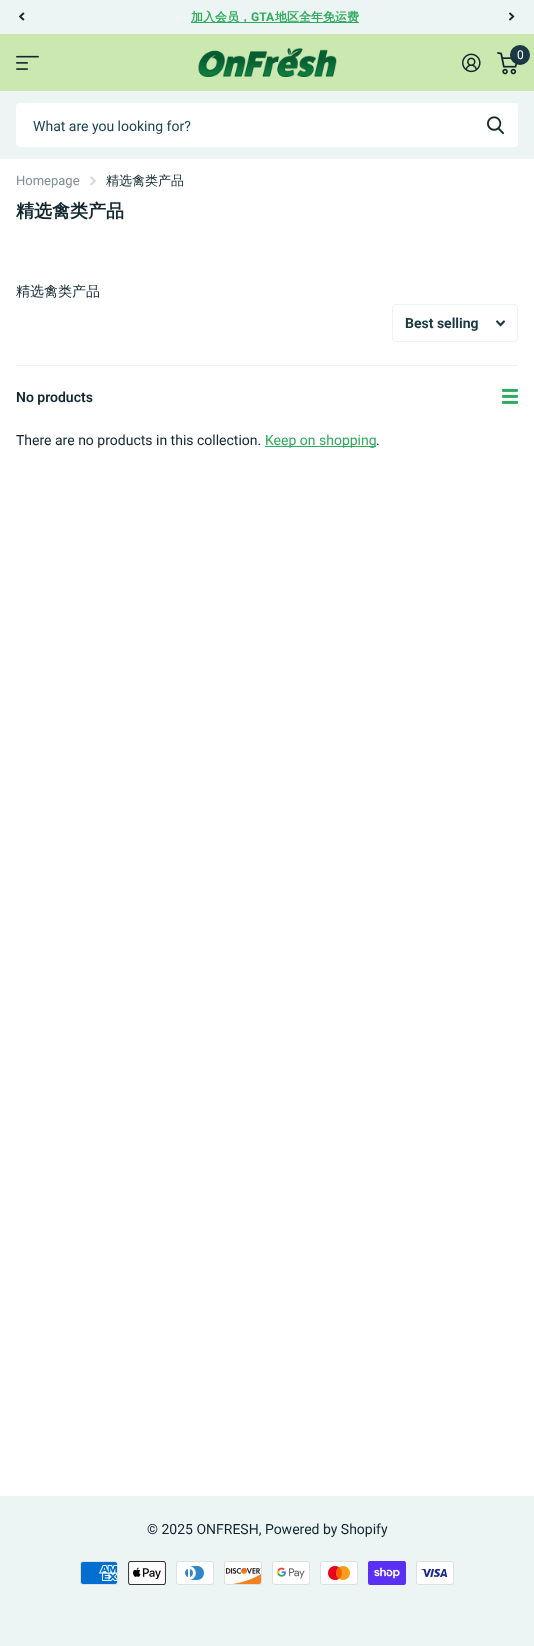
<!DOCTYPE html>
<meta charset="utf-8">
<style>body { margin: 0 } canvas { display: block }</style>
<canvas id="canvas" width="534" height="1646"></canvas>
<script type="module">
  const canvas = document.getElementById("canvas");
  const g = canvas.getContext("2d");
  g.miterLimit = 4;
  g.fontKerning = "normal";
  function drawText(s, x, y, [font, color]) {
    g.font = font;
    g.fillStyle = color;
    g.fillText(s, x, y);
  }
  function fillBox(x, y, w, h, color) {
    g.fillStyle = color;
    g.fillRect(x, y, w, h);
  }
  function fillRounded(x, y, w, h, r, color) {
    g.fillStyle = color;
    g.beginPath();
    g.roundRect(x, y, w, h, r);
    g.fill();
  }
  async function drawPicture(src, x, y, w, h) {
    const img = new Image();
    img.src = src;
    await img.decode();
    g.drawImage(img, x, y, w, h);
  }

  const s1 = ["bold 12px WenQuanYi Zen Hei", "#2FAB5D"];
  const s2 = ["bold 12px Roboto", "#2FAB5D"];
  const s3 = ["12px Roboto", "#FFFFFF"];
  const s4 = ["14px Roboto", "#204454"];
  const s5 = ["13px Roboto", "#818C91"];
  const s6 = ["500 13px WenQuanYi Zen Hei", "#12262F"];
  const s7 = ["bold 18px WenQuanYi Zen Hei", "#12262F"];
  const s8 = ["500 14px WenQuanYi Zen Hei", "#12262F"];
  const s9 = ["bold 14px Roboto", "#1A3945"];
  const s10 = ["600 14px Roboto", "#12262F"];
  const s11 = ["14px Roboto", "#12262F"];
  const s12 = ["14px Roboto", "#2FAB5D"];

  fillBox(0, 0, 534, 1646, "#EDF4F4");
  fillBox(0, 159, 534, 1337, "#FFFFFF");
  await drawPicture("pic1.png", 19, 12, 6, 9);
  await drawPicture("pic2.png", 175, 14, 8, 6);
  fillBox(191, 22, 168, 1, "#2FAB5D");
  drawText("加入会员，", 191, 21, s1);
  drawText("GTA", 251, 21, s2);
  drawText("地区全年免运费", 275, 21, s1);
  await drawPicture("pic3.png", 509, 12, 6, 9);
  fillBox(0, 34, 534, 57, "#CBE8B1");
  await drawPicture("pic4.png", 16, 55, 23, 15);
  await drawPicture("pic5.png", 198, 48, 139, 29);
  await drawPicture("pic6.png", 462, 53, 19, 20);
  await drawPicture("pic7.png", 497, 52, 20, 23);
  g.fillStyle = "#1A3945";
  g.beginPath();
  g.arc(520, 55, 10, 0, Math.PI * 2);
  g.fill();
  g.fillStyle = "rgba(0, 0, 0, 0.1)";
  g.beginPath();
  g.moveTo(528, 61.5);
  g.bezierCurveTo(519, 67.5, 507.5, 56.5, 514, 47);
  g.bezierCurveTo(509, 50.5, 508.5, 58, 513, 62);
  g.bezierCurveTo(517, 66, 524, 66, 528, 61.5);
  g.closePath();
  g.fill();
  drawText("0", 517, 59, s3);
  fillRounded(16, 103, 502, 44, 4, "#FFFFFF");
  drawText("What are you looking for?", 33, 131, s4);
  await drawPicture("pic8.png", 487, 116, 17, 19);
  drawText("Homepage", 16, 185, s5);
  await drawPicture("pic9.png", 90, 176, 6, 10);
  drawText("精选禽类产品", 106, 185, s6);
  drawText("精选禽类产品", 16, 217, s7);
  drawText("精选禽类产品", 16, 296, s8);
  fillBox(16, 365, 502, 1, "#EDF4F4");
  g.beginPath();
  g.roundRect(392.5, 304.5, 125, 37, 3.5);
  g.strokeStyle = "#EDF4F4";
  g.stroke();
  drawText("Best selling", 405, 328, s9);
  await drawPicture("pic10.png", 496, 320, 9, 7);
  drawText("No products", 16, 402, s10);
  await drawPicture("pic11.png", 502, 388, 16, 16);
  drawText("There are no products in this collection.", 16, 445, s11);
  fillBox(265, 446, 111, 1, "#2FAB5D");
  drawText("Keep on shopping", 265, 445, s12);
  drawText(".", 376, 445, s11);
  drawText("© 2025 ONFRESH, Powered by Shopify", 147, 1534, s11);
  await drawPicture("pic12.png", 80, 1561, 38, 24);
  await drawPicture("pic13.png", 128, 1561, 38, 24);
  await drawPicture("pic14.png", 176, 1561, 38, 24);
  await drawPicture("pic15.png", 224, 1561, 38, 24);
  await drawPicture("pic16.png", 272, 1561, 38, 24);
  await drawPicture("pic17.png", 320, 1561, 38, 24);
  await drawPicture("pic18.png", 368, 1561, 38, 24);
  await drawPicture("pic19.png", 416, 1561, 38, 24);
</script>
